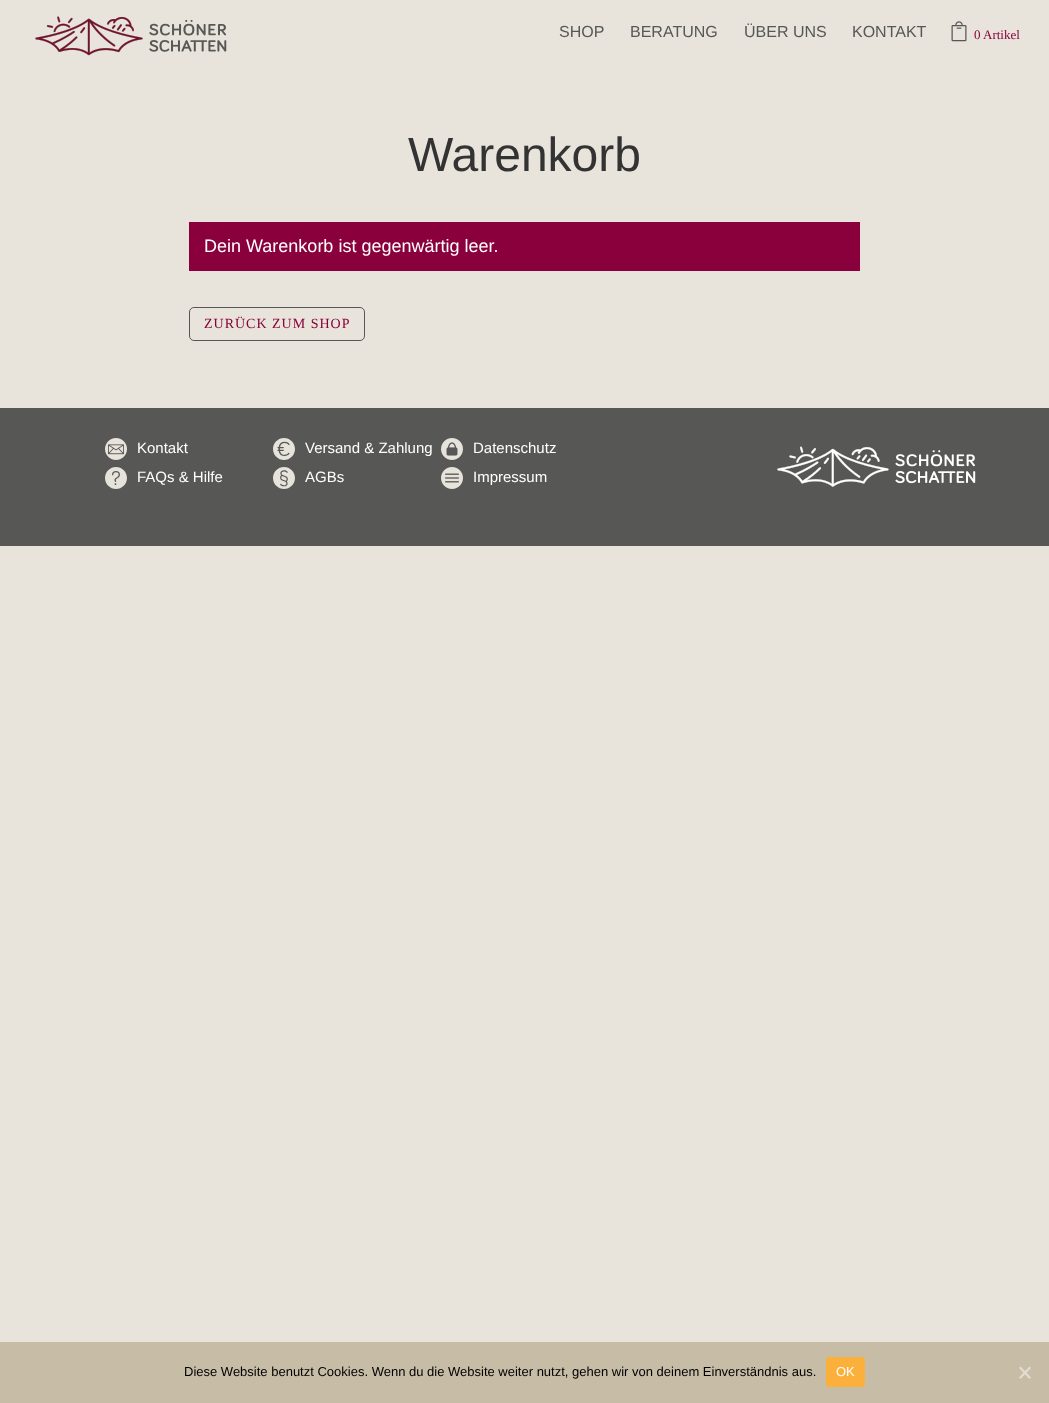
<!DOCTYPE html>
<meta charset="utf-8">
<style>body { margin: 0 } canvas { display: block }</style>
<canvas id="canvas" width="1049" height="1403"></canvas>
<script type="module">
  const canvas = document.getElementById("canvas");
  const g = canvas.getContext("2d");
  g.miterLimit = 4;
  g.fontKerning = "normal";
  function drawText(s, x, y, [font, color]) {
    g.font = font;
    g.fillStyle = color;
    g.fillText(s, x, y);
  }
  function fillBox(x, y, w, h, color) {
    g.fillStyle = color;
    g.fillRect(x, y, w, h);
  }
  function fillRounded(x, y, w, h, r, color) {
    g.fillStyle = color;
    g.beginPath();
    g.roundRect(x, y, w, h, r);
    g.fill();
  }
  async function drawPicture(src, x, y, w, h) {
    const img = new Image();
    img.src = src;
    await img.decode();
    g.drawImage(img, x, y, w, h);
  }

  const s1 = ["16px Liberation Sans", "#575756"];
  const s2 = ["13px Liberation Serif", "#8A003D"];
  const s3 = ["48px Liberation Sans", "#333333"];
  const s4 = ["18px Liberation Sans", "#FFFFFF"];
  const s5 = ["14px Liberation Serif", "#8A003D"];
  const s6 = ["15px Liberation Sans", "#FFFFFF"];
  const s7 = ["13px Liberation Sans", "#000000"];
  const s8 = ["13px Liberation Sans", "#FFFFFF"];

  fillBox(0, 0, 1049, 1403, "#E8E4DB");
  await drawPicture("pic1.png", 35, 16, 192, 40);
  drawText("SHOP", 559, 37, s1);
  drawText("BERATUNG", 630, 37, s1);
  drawText("ÜBER UNS", 744, 37, s1);
  drawText("KONTAKT", 852, 37, s1);
  await drawPicture("pic2.png", 951, 21, 16, 21);
  drawText("0 Artikel", 974, 39, s2);
  drawText("Warenkorb", 408, 171, s3);
  fillBox(189, 222, 671, 49, "#8A003D");
  drawText("Dein Warenkorb ist gegenwärtig leer.", 204, 252, s4);
  g.beginPath();
  g.roundRect(189.5, 307.5, 175, 33, 4.5);
  g.strokeStyle = "#575756";
  g.stroke();
  g.letterSpacing = "1px";
  drawText("ZURÜCK ZUM SHOP", 204, 328, s5);
  fillBox(0, 408, 1049, 138, "#575756");
  await drawPicture("pic3.png", 105, 438, 22, 22);
  g.letterSpacing = "0px";
  drawText("Kontakt", 137, 453, s6);
  await drawPicture("pic4.png", 105, 467, 22, 22);
  drawText("FAQs & Hilfe", 137, 482, s6);
  await drawPicture("pic5.png", 273, 438, 22, 22);
  drawText("Versand & Zahlung", 305, 453, s6);
  await drawPicture("pic6.png", 273, 467, 22, 22);
  drawText("AGBs", 305, 482, s6);
  await drawPicture("pic7.png", 441, 438, 22, 22);
  drawText("Datenschutz", 473, 453, s6);
  await drawPicture("pic8.png", 441, 467, 22, 22);
  drawText("Impressum", 473, 482, s6);
  await drawPicture("pic9.png", 777, 446, 199, 41);
  fillBox(0, 1342, 1049, 61, "#C7BCA6");
  drawText("Diese Website benutzt Cookies. Wenn du die Website weiter nutzt, gehen wir von deinem Einverständnis aus.", 184, 1376, s7);
  fillRounded(826, 1357, 39, 30, 3, "#FBB03B");
  drawText("OK", 836, 1376, s8);
  g.fillStyle = "#E3DED3";
  g.beginPath();
  g.moveTo(1029.5, 1366.5);
  g.lineTo(1031, 1368);
  g.lineTo(1020.5, 1379);
  g.lineTo(1019, 1377.5);
  g.closePath();
  g.fill();
  g.beginPath();
  g.moveTo(1019, 1368);
  g.lineTo(1020.5, 1366.5);
  g.lineTo(1031, 1377.5);
  g.lineTo(1029.5, 1379);
  g.closePath();
  g.fill();
</script>
